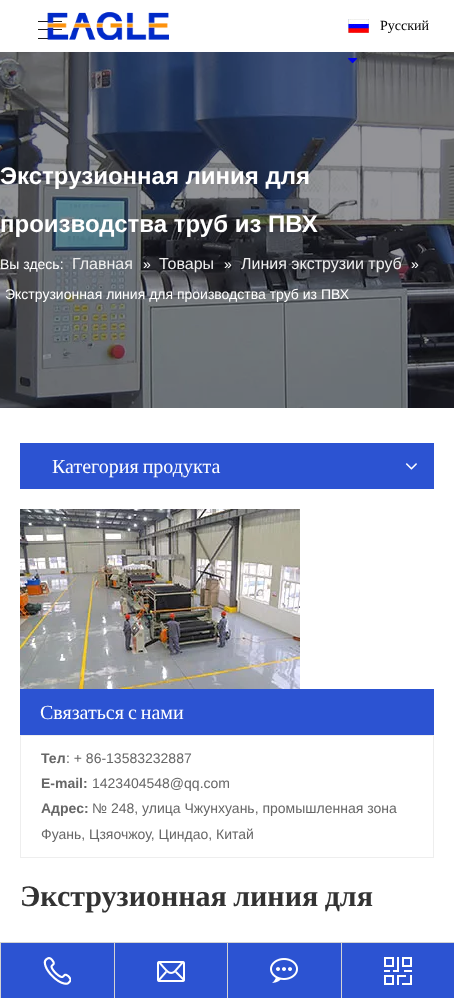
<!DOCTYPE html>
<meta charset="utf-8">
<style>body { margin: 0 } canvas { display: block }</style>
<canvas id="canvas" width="454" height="998"></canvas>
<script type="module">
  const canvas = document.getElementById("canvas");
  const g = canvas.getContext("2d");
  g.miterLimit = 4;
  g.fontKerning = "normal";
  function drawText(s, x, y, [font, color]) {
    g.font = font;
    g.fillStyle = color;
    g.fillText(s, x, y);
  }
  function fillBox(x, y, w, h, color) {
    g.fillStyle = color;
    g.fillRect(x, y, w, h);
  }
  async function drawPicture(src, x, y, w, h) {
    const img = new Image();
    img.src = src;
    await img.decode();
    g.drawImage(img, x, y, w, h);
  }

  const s1 = ["14px Liberation Serif", "#000000"];
  const s2 = ["bold 24px Liberation Sans", "#FFFFFF"];
  const s3 = ["14px Liberation Sans", "#FFFFFF"];
  const s4 = ["16px Liberation Sans", "#EEEEEE"];
  const s5 = ["20px Liberation Serif", "#FFFFFF"];
  const s6 = ["bold 14px Liberation Sans", "#666666"];
  const s7 = ["14px Liberation Sans", "#666666"];
  const s8 = ["bold 30px Liberation Serif", "#333333"];

  fillBox(0, 0, 454, 998, "#FFFFFF");
  fillBox(38, 21, 24, 1, "#1C1C1C");
  fillBox(38, 29, 24, 1, "#1C1C1C");
  fillBox(38, 38, 11, 1, "#1C1C1C");
  await drawPicture("pic1.png", 47, 12, 122, 28);
  await drawPicture("pic2.png", 348, 19, 21, 14);
  drawText("Pусский", 380, 30, s1);
  await drawPicture("pic4.png", 0, 52, 454, 356);
  await drawPicture("pic3.png", 348, 58, 10, 6);
  drawText("Экструзионная линия для", 0, 184, s2);
  drawText("производства труб из ПВХ", 0, 232, s2);
  drawText("Вы здесь:", 0, 269, s3);
  drawText("Главная", 72, 269, s4);
  drawText("»", 143, 269, s3);
  drawText("Товары", 159, 269, s4);
  drawText("»", 224, 269, s3);
  drawText("Линия экструзии труб", 241, 269, s4);
  drawText("»", 411, 269, s3);
  drawText("Экструзионная линия для производства труб из ПВХ", 5, 299, s3);
  fillBox(20, 443, 414, 46, "#2C53D2");
  g.wordSpacing = "-1px";
  drawText("Категория продукта", 52, 473, s5);
  await drawPicture("pic5.png", 405, 463, 12, 7);
  await drawPicture("pic6.png", 20, 509, 280, 180);
  fillBox(20, 689, 414, 46, "#2C53D2");
  drawText("Связаться с нами", 40, 719, s5);
  g.strokeStyle = "#EEEEEE";
  g.strokeRect(20.5, 735.5, 413, 122);
  g.wordSpacing = "0px";
  drawText("Тел", 41, 763, s6);
  drawText(": + 86-13583232887", 66, 763, s7);
  drawText("E-mail:", 41, 788, s6);
  drawText("1423404548@qq.com", 92, 788, s7);
  drawText("Адрес:", 41, 813, s6);
  drawText("№ 248, улица Чжунхуань, промышленная зона", 92, 813, s7);
  drawText("Фуань, Цзяочжоу, Циндао, Китай", 41, 839, s7);
  g.wordSpacing = "-1px";
  drawText("Экструзионная линия для", 20, 906, s8);
  fillBox(0, 942, 454, 1, "#D3D3D3");
  fillBox(0, 943, 1, 55, "#D3D3D3");
  fillBox(1, 943, 113, 55, "#2C53D2");
  await drawPicture("pic7.png", 43, 957, 28, 28);
  fillBox(114, 943, 1, 55, "#D3D3D3");
  fillBox(115, 943, 112, 55, "#2C53D2");
  await drawPicture("pic8.png", 157, 961, 28, 21);
  fillBox(227, 943, 1, 55, "#D3D3D3");
  fillBox(228, 943, 113, 55, "#2C53D2");
  await drawPicture("pic9.png", 270, 958, 28, 25);
  fillBox(341, 943, 1, 55, "#D3D3D3");
  fillBox(342, 943, 112, 55, "#2C53D2");
  await drawPicture("pic10.png", 384, 957, 28, 28);
</script>
